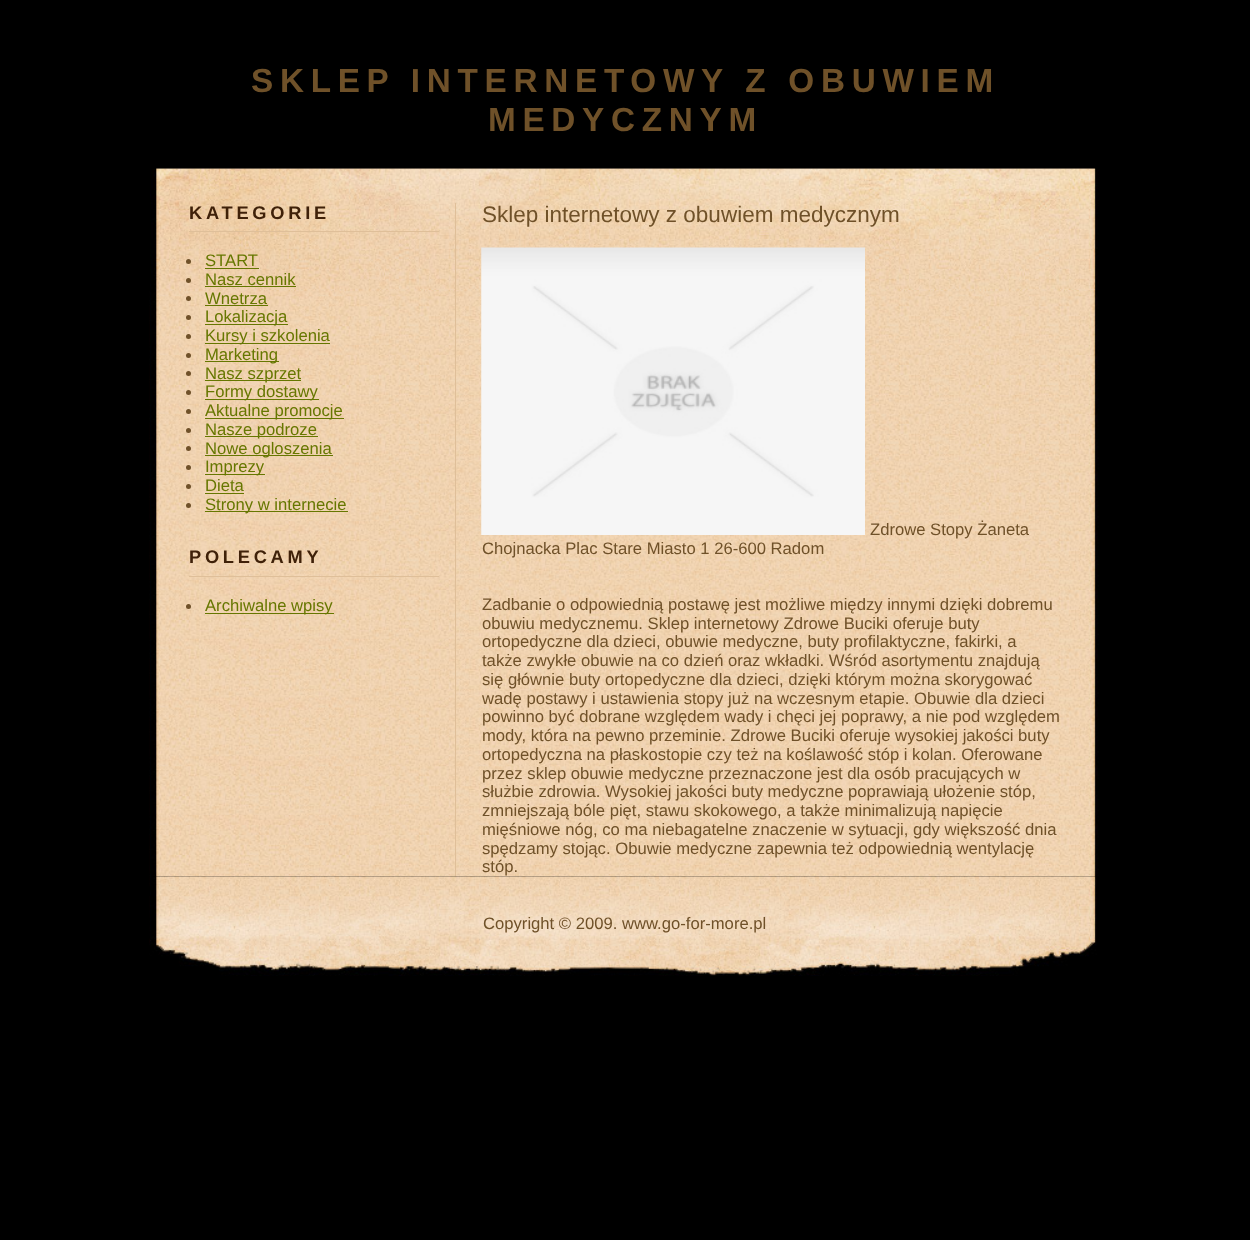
<!DOCTYPE html>
<meta charset="utf-8">
<style>body { margin: 0 } canvas { display: block }</style>
<canvas id="canvas" width="1250" height="1240"></canvas>
<script type="module">
  const canvas = document.getElementById("canvas");
  const g = canvas.getContext("2d");
  g.miterLimit = 4;
  g.fontKerning = "normal";
  function drawText(s, x, y, [font, color]) {
    g.font = font;
    g.fillStyle = color;
    g.fillText(s, x, y);
  }
  function fillBox(x, y, w, h, color) {
    g.fillStyle = color;
    g.fillRect(x, y, w, h);
  }
  async function drawPicture(src, x, y, w, h) {
    const img = new Image();
    img.src = src;
    await img.decode();
    g.drawImage(img, x, y, w, h);
  }

  const s1 = ["bold 33.3px Liberation Sans", "#6F5129"];
  const s2 = ["bold 18.25px Liberation Sans", "#3F2109"];
  const s3 = ["16.65px Liberation Sans", "#667700"];
  const s4 = ["22.5px Liberation Sans", "#6F5129"];
  const s5 = ["16.65px Liberation Sans", "#6F5129"];

  fillBox(0, 0, 1250, 1240, "#000000");
  g.letterSpacing = "6.7px";
  drawText("SKLEP INTERNETOWY Z OBUWIEM", 251, 92, s1);
  drawText("MEDYCZNYM", 488, 131, s1);
  await drawPicture("pic1.png", 149, 168, 950, 708);
  fillBox(149, 169, 950, 122, "#000000");
  await drawPicture("pic2.png", 150, 168, 949, 124);
  fillBox(189, 231, 250, 1, "#DFBF99");
  g.letterSpacing = "3.75px";
  drawText("KATEGORIE", 189, 219, s2);
  g.fillStyle = "#6F5129";
  g.beginPath();
  g.arc(188.5, 261.5, 2.5, 0, Math.PI * 2);
  g.fill();
  g.letterSpacing = "0px";
  drawText("START", 205, 266, s3);
  fillBox(205, 268, 54, 1, "#667700");
  g.fillStyle = "#6F5129";
  g.beginPath();
  g.arc(188.5, 280.5, 2.5, 0, Math.PI * 2);
  g.fill();
  drawText("Nasz cennik", 205, 285, s3);
  fillBox(205, 286, 91, 1, "#667700");
  g.fillStyle = "#6F5129";
  g.beginPath();
  g.arc(188.5, 298.5, 2.5, 0, Math.PI * 2);
  g.fill();
  drawText("Wnetrza", 205, 304, s3);
  fillBox(205, 305, 63, 1, "#667700");
  g.fillStyle = "#6F5129";
  g.beginPath();
  g.arc(188.5, 317.5, 2.5, 0, Math.PI * 2);
  g.fill();
  fillBox(205, 324, 83, 1, "#667700");
  drawText("Lokalizacja", 205, 322, s3);
  g.fillStyle = "#6F5129";
  g.beginPath();
  g.arc(188.5, 336.5, 2.5, 0, Math.PI * 2);
  g.fill();
  fillBox(205, 343, 125, 1, "#667700");
  drawText("Kursy i szkolenia", 205, 341, s3);
  g.fillStyle = "#6F5129";
  g.beginPath();
  g.arc(188.5, 355.5, 2.5, 0, Math.PI * 2);
  g.fill();
  fillBox(205, 361, 74, 1, "#667700");
  drawText("Marketing", 205, 360, s3);
  g.fillStyle = "#6F5129";
  g.beginPath();
  g.arc(188.5, 373.5, 2.5, 0, Math.PI * 2);
  g.fill();
  fillBox(205, 380, 96, 1, "#667700");
  drawText("Nasz szprzet", 205, 379, s3);
  g.fillStyle = "#6F5129";
  g.beginPath();
  g.arc(188.5, 392.5, 2.5, 0, Math.PI * 2);
  g.fill();
  fillBox(205, 399, 114, 1, "#667700");
  drawText("Formy dostawy", 205, 397, s3);
  g.fillStyle = "#6F5129";
  g.beginPath();
  g.arc(188.5, 411.5, 2.5, 0, Math.PI * 2);
  g.fill();
  fillBox(205, 418, 139, 1, "#667700");
  drawText("Aktualne promocje", 205, 416, s3);
  g.fillStyle = "#6F5129";
  g.beginPath();
  g.arc(188.5, 430.5, 2.5, 0, Math.PI * 2);
  g.fill();
  fillBox(205, 436, 113, 1, "#667700");
  drawText("Nasze podroze", 205, 435, s3);
  g.fillStyle = "#6F5129";
  g.beginPath();
  g.arc(188.5, 448.5, 2.5, 0, Math.PI * 2);
  g.fill();
  fillBox(205, 455, 128, 1, "#667700");
  drawText("Nowe ogloszenia", 205, 454, s3);
  g.fillStyle = "#6F5129";
  g.beginPath();
  g.arc(188.5, 467.5, 2.5, 0, Math.PI * 2);
  g.fill();
  fillBox(205, 474, 60, 1, "#667700");
  drawText("Imprezy", 205, 472, s3);
  g.fillStyle = "#6F5129";
  g.beginPath();
  g.arc(188.5, 486.5, 2.5, 0, Math.PI * 2);
  g.fill();
  drawText("Dieta", 205, 491, s3);
  fillBox(205, 493, 39, 1, "#667700");
  g.fillStyle = "#6F5129";
  g.beginPath();
  g.arc(188.5, 505.5, 2.5, 0, Math.PI * 2);
  g.fill();
  fillBox(205, 511, 143, 1, "#667700");
  drawText("Strony w internecie", 205, 510, s3);
  fillBox(189, 576, 250, 1, "#DFBF99");
  g.letterSpacing = "3.75px";
  drawText("POLECAMY", 189, 563, s2);
  g.fillStyle = "#6F5129";
  g.beginPath();
  g.arc(188.5, 606.5, 2.5, 0, Math.PI * 2);
  g.fill();
  fillBox(205, 613, 129, 1, "#667700");
  g.letterSpacing = "0px";
  drawText("Archiwalne wpisy", 205, 611, s3);
  fillBox(455, 203, 1, 673, "#DFBF99");
  drawText("Sklep internetowy z obuwiem medycznym", 482, 222, s4);
  await drawPicture("pic3.png", 481, 247, 384, 288);
  drawText("Zdrowe Stopy Żaneta", 870, 535, s5);
  drawText("Chojnacka Plac Stare Miasto 1 26-600 Radom", 482, 554, s5);
  drawText("Zadbanie o odpowiednią postawę jest możliwe między innymi dzięki dobremu", 482, 610, s5);
  drawText("obuwiu medycznemu. Sklep internetowy Zdrowe Buciki oferuje buty", 482, 629, s5);
  drawText("ortopedyczne dla dzieci, obuwie medyczne, buty profilaktyczne, fakirki, a", 482, 647, s5);
  drawText("także zwykłe obuwie na co dzień oraz wkładki. Wśród asortymentu znajdują", 482, 666, s5);
  drawText("się głównie buty ortopedyczne dla dzieci, dzięki którym można skorygować", 482, 685, s5);
  drawText("wadę postawy i ustawienia stopy już na wczesnym etapie. Obuwie dla dzieci", 482, 704, s5);
  drawText("powinno być dobrane względem wady i chęci jej poprawy, a nie pod względem", 482, 722, s5);
  drawText("mody, która na pewno przeminie. Zdrowe Buciki oferuje wysokiej jakości buty", 482, 741, s5);
  drawText("ortopedyczna na płaskostopie czy też na koślawość stóp i kolan. Oferowane", 482, 760, s5);
  drawText("przez sklep obuwie medyczne przeznaczone jest dla osób pracujących w", 482, 779, s5);
  drawText("służbie zdrowia. Wysokiej jakości buty medyczne poprawiają ułożenie stóp,", 482, 797, s5);
  drawText("zmniejszają bóle pięt, stawu skokowego, a także minimalizują napięcie", 482, 816, s5);
  drawText("mięśniowe nóg, co ma niebagatelne znaczenie w sytuacji, gdy większość dnia", 482, 835, s5);
  drawText("spędzamy stojąc. Obuwie medyczne zapewnia też odpowiednią wentylację", 482, 854, s5);
  drawText("stóp.", 482, 872, s5);
  await drawPicture("pic4.png", 149, 876, 948, 100);
  drawText("Copyright © 2009. www.go-for-more.pl", 483, 929, s5);
</script>
